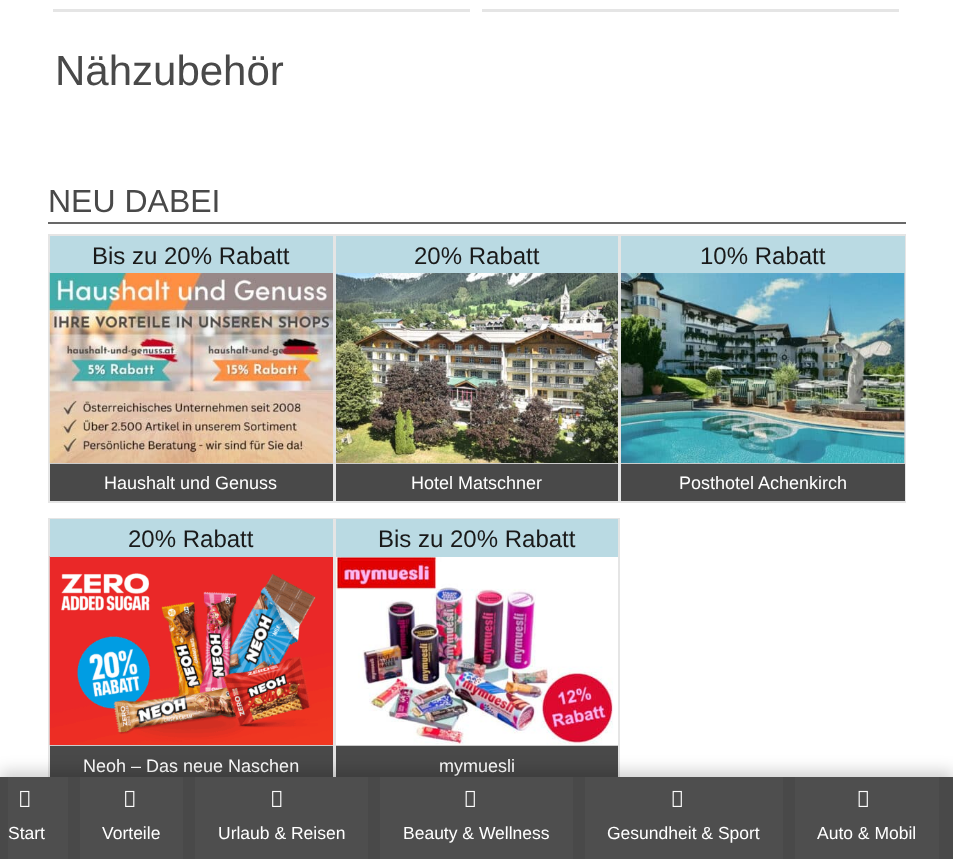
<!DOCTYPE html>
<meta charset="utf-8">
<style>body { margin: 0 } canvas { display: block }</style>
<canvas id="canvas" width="953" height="859"></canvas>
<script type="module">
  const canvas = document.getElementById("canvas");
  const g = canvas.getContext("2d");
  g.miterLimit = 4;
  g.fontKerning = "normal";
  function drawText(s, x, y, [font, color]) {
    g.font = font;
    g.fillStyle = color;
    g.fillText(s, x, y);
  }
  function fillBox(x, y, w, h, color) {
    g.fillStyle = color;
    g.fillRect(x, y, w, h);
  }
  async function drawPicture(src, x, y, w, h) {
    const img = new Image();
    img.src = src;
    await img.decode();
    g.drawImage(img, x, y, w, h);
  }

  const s1 = ["42px Liberation Sans", "#494949"];
  const s2 = ["32px Liberation Sans", "#494949"];
  const s3 = ["24px Liberation Sans", "#191919"];
  const s4 = ["18px Liberation Sans", "#FFFFFF"];
  const s5 = ["17.5px Liberation Sans", "#FFFFFF"];

  fillBox(0, 0, 953, 859, "#FFFFFF");
  fillBox(53, 9, 417, 3, "#E5E5E5");
  fillBox(482, 9, 417, 3, "#E5E5E5");
  drawText("Nähzubehör", 55, 85, s1);
  fillBox(48, 222, 858, 2, "#686868");
  drawText("NEU DABEI", 48, 212, s2);
  g.strokeStyle = "#E5E5E5";
  g.lineWidth = 2;
  g.strokeRect(49, 235, 285, 267);
  await drawPicture("pic1.png", 49, 272, 284, 191);
  fillBox(50, 236, 283, 37, "#BADAE3");
  drawText("Bis zu 20% Rabatt", 92, 264, s3);
  fillBox(50, 463, 283, 1, "#CCCCCC");
  fillBox(50, 464, 283, 37, "#494949");
  drawText("Haushalt und Genuss", 104, 489, s4);
  g.strokeRect(336, 235, 283, 267);
  fillBox(336, 236, 282, 37, "#BADAE3");
  drawText("20% Rabatt", 414, 264, s3);
  fillBox(336, 463, 282, 1, "#CCCCCC");
  await drawPicture("pic2.png", 336, 273, 282, 190);
  fillBox(336, 464, 282, 37, "#494949");
  drawText("Hotel Matschner", 411, 489, s4);
  g.strokeRect(621, 235, 284, 267);
  fillBox(621, 236, 284, 37, "#BADAE3");
  drawText("10% Rabatt", 700, 264, s3);
  fillBox(621, 273, 284, 191, "#CCCCCC");
  await drawPicture("pic3.png", 621, 273, 284, 190);
  fillBox(621, 464, 284, 37, "#494949");
  drawText("Posthotel Achenkirch", 679, 489, s4);
  g.strokeRect(49, 519, 285, 265);
  await drawPicture("pic4.png", 49, 556, 284, 189);
  fillBox(50, 519, 283, 38, "#BADAE3");
  drawText("20% Rabatt", 128, 547, s3);
  fillBox(50, 745, 283, 1, "#CCCCCC");
  fillBox(50, 746, 283, 31, "#494949");
  drawText("Neoh – Das neue Naschen", 83, 772, s4);
  g.strokeRect(336, 519, 283, 265);
  fillBox(336, 519, 282, 38, "#BADAE3");
  drawText("Bis zu 20% Rabatt", 378, 547, s3);
  fillBox(336, 745, 282, 1, "#CCCCCC");
  await drawPicture("pic5.png", 336, 557, 282, 188);
  fillBox(336, 746, 282, 31, "#494949");
  drawText("mymuesli", 439, 772, s4);
  g.fillStyle = "rgba(0, 0, 0, 0.18)";
  g.filter = "blur(7.5px)";
  g.beginPath();
  g.rect(0, 771, 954, 83);
  g.fill();
  g.filter = "none";
  fillBox(0, 777, 953, 82, "#494949");
  fillBox(8, 777, 60, 82, "#4E4E4E");
  await drawPicture("pic6.png", 20, 790, 10, 17);
  drawText("Start", 8, 839, s5);
  fillBox(80, 777, 103, 82, "#4E4E4E");
  await drawPicture("pic6.png", 125, 790, 10, 17);
  drawText("Vorteile", 102, 839, s5);
  fillBox(195, 777, 173, 82, "#4E4E4E");
  await drawPicture("pic6.png", 272, 790, 10, 17);
  drawText("Urlaub & Reisen", 218, 839, s5);
  fillBox(380, 777, 193, 82, "#4E4E4E");
  await drawPicture("pic7.png", 465, 790, 10, 17);
  drawText("Beauty & Wellness", 403, 839, s5);
  fillBox(585, 777, 198, 82, "#4E4E4E");
  await drawPicture("pic7.png", 672, 790, 10, 17);
  drawText("Gesundheit & Sport", 607, 839, s5);
  fillBox(795, 777, 144, 82, "#4E4E4E");
  await drawPicture("pic7.png", 858, 790, 10, 17);
  drawText("Auto & Mobil", 817, 839, s5);
</script>
